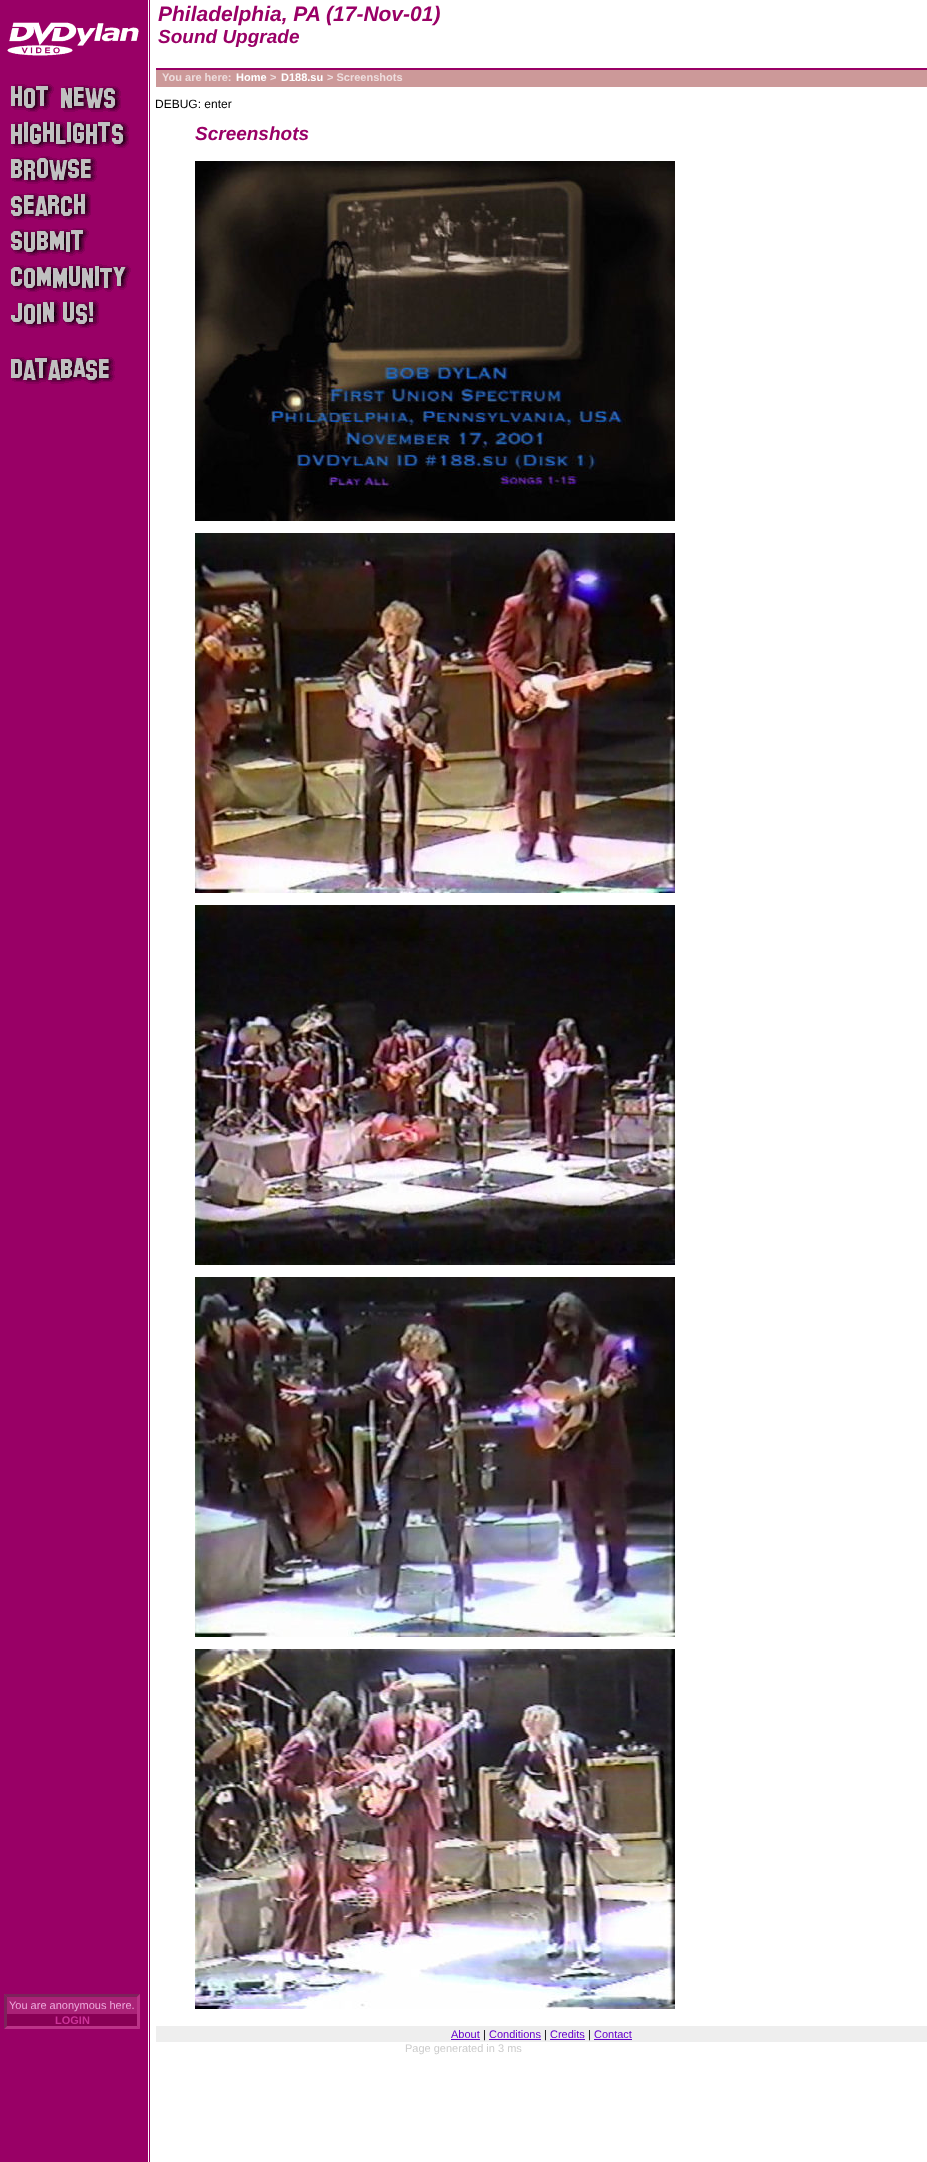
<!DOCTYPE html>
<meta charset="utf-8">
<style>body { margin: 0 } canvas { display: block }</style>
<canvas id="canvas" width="927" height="2162"></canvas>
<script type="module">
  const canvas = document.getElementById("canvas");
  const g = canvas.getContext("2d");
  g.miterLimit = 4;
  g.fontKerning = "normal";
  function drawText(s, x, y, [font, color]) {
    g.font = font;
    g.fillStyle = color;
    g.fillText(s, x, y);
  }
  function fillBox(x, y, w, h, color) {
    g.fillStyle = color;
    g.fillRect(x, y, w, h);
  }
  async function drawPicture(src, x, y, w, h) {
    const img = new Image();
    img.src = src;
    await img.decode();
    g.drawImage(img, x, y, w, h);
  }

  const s1 = ["italic bold 21px Liberation Sans", "#990066"];
  const s2 = ["italic bold 19px Liberation Sans", "#990066"];
  const s3 = ["bold 11px Liberation Sans", "#EEDDDD"];
  const s4 = ["bold 11px Liberation Sans", "#FFFFFF"];
  const s5 = ["12px Liberation Sans", "#000000"];
  const s6 = ["11px Liberation Sans", "#EEAADD"];
  const s7 = ["bold 11px Liberation Sans", "#CC3399"];
  const s8 = ["11px Liberation Sans", "#6600CC"];
  const s9 = ["11px Liberation Sans", "#000000"];
  const s10 = ["11px Liberation Sans", "#CCCCCC"];

  fillBox(0, 0, 927, 2162, "#FFFFFF");
  await drawPicture("pic1.png", 0, 0, 150, 2162);
  await drawPicture("pic2.png", 7, 22, 132, 34);
  fillBox(156, 68, 771, 2, "#990066");
  drawText("Philadelphia, PA (17-Nov-01)", 158, 21, s1);
  drawText("Sound Upgrade", 158, 43, s2);
  fillBox(156, 70, 771, 17, "#CC9999");
  drawText("You are here:", 162, 81, s3);
  drawText("Home", 236, 81, s4);
  drawText(">", 270, 81, s3);
  drawText("D188.su", 281, 81, s4);
  drawText("> Screenshots", 327, 81, s3);
  await drawPicture("pic3.png", 11, 84, 110, 28);
  await drawPicture("pic4.png", 11, 120, 118, 28);
  await drawPicture("pic5.png", 11, 156, 86, 28);
  await drawPicture("pic6.png", 11, 192, 80, 28);
  await drawPicture("pic7.png", 11, 228, 78, 28);
  await drawPicture("pic8.png", 11, 264, 120, 28);
  await drawPicture("pic9.png", 11, 300, 88, 28);
  await drawPicture("pic10.png", 11, 356, 104, 28);
  drawText("DEBUG: enter", 155, 108, s5);
  drawText("Screenshots", 195, 140, s2);
  await drawPicture("pic11.png", 195, 161, 480, 360);
  await drawPicture("pic12.png", 195, 533, 480, 360);
  await drawPicture("pic13.png", 195, 905, 480, 360);
  await drawPicture("pic14.png", 195, 1277, 480, 360);
  await drawPicture("pic15.png", 195, 1649, 480, 360);
  fillBox(4, 1994, 136, 35, "#AA2277");
  g.fillStyle = "#7D225B";
  g.beginPath();
  g.moveTo(4, 1994);
  g.lineTo(140, 1994);
  g.lineTo(137, 1997);
  g.lineTo(7, 1997);
  g.closePath();
  g.fill();
  g.fillStyle = "#BB3388";
  g.beginPath();
  g.moveTo(140, 1994);
  g.lineTo(140, 2029);
  g.lineTo(137, 2026);
  g.lineTo(137, 1997);
  g.closePath();
  g.fill();
  g.beginPath();
  g.moveTo(140, 2029);
  g.lineTo(4, 2029);
  g.lineTo(7, 2026);
  g.lineTo(137, 2026);
  g.closePath();
  g.fill();
  g.fillStyle = "#7D225B";
  g.beginPath();
  g.moveTo(4, 2029);
  g.lineTo(4, 1994);
  g.lineTo(7, 1997);
  g.lineTo(7, 2026);
  g.closePath();
  g.fill();
  drawText("You are anonymous here.", 9, 2009, s6);
  fillBox(7, 2014, 130, 12, "#880055");
  drawText("LOGIN", 55, 2024, s7);
  fillBox(156, 2026, 771, 16, "#EEEEEE");
  drawText("About", 451, 2038, s8);
  fillBox(451, 2039, 29, 1, "#6600CC");
  drawText("|", 483, 2038, s9);
  drawText("Conditions", 489, 2038, s8);
  fillBox(489, 2039, 52, 1, "#6600CC");
  drawText("|", 544, 2038, s9);
  drawText("Credits", 550, 2038, s8);
  fillBox(550, 2039, 35, 1, "#6600CC");
  drawText("|", 588, 2038, s9);
  drawText("Contact", 594, 2038, s8);
  fillBox(594, 2039, 38, 1, "#6600CC");
  drawText("Page generated in 3 ms", 405, 2052, s10);
</script>
